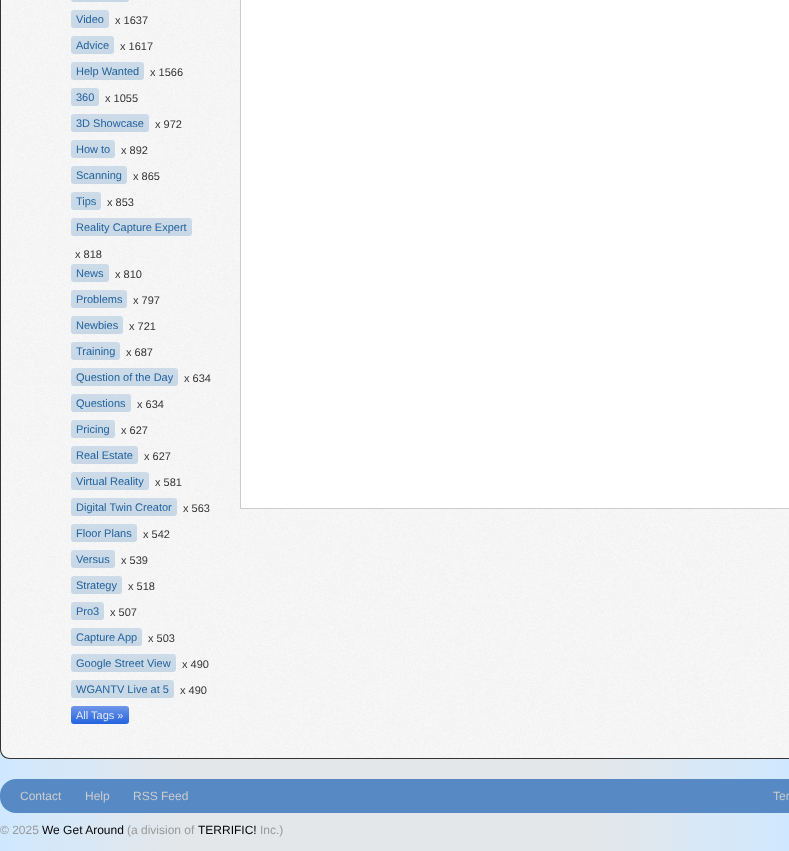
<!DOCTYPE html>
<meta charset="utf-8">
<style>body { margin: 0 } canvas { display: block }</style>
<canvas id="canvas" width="789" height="851"></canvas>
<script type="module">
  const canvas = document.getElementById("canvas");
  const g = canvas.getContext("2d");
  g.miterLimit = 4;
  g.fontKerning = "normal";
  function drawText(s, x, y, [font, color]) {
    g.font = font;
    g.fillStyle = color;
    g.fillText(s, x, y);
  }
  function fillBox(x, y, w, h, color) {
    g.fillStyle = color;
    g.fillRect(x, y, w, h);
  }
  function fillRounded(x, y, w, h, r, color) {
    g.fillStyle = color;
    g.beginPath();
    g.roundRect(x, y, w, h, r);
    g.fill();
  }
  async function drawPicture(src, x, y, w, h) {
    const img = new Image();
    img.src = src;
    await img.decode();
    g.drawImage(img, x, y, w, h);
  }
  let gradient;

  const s1 = ["11px Liberation Sans", "#22629D"];
  const s2 = ["11px Liberation Sans", "#333333"];
  const s3 = ["11px Liberation Sans", "#E4EBF4"];
  const s4 = ["12px Liberation Sans", "#CCCCCC"];
  const s5 = ["12px Liberation Sans", "#999999"];
  const s6 = ["12px Liberation Sans", "#000000"];

  fillBox(0, 0, 789, 851, "#FFFFFF");
  gradient = g.createLinearGradient(0, -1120, 789, -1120);
  gradient.addColorStop(0, "#CFE8FF");
  gradient.addColorStop(0.22, "#E3E7EA");
  gradient.addColorStop(0.76, "#E3E7EA");
  gradient.addColorStop(1, "#CFE8FF");
  g.fillStyle = gradient;
  g.fillRect(0, 749, 789, 102);
  await drawPicture("pic1.png", 0, 0, 789, 759);
  g.fillStyle = "#333334";
  g.beginPath();
  g.moveTo(0, -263);
  g.lineTo(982, -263);
  g.lineTo(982, 749);
  g.bezierCurveTo(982, 755, 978, 759, 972, 759);
  g.lineTo(10, 759);
  g.bezierCurveTo(4, 759, 0, 755, 0, 749);
  g.closePath();
  g.moveTo(1, -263);
  g.lineTo(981, -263);
  g.lineTo(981, 749);
  g.bezierCurveTo(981, 754, 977, 758, 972, 758);
  g.lineTo(10, 758);
  g.bezierCurveTo(5, 758, 1, 754, 1, 749);
  g.closePath();
  g.fill("evenodd");
  gradient = g.createLinearGradient(100, -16, 100, 2);
  gradient.addColorStop(0, "#CEDCE9");
  gradient.addColorStop(1, "#C7D7E5");
  g.fillStyle = gradient;
  g.beginPath();
  g.roundRect(71, -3, 58, 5, 3);
  g.fill();
  gradient = g.createLinearGradient(90, 10, 90, 28);
  gradient.addColorStop(0, "#CEDCE9");
  gradient.addColorStop(1, "#C7D7E5");
  g.fillStyle = gradient;
  g.beginPath();
  g.roundRect(71, 10, 38, 18, 3);
  g.fill();
  drawText("Video", 76, 23, s1);
  drawText("x 1637", 115, 24, s2);
  gradient = g.createLinearGradient(93, 36, 93, 54);
  gradient.addColorStop(0, "#CEDCE9");
  gradient.addColorStop(1, "#C7D7E5");
  g.fillStyle = gradient;
  g.beginPath();
  g.roundRect(71, 36, 43, 18, 3);
  g.fill();
  drawText("Advice", 76, 49, s1);
  drawText("x 1617", 120, 50, s2);
  gradient = g.createLinearGradient(108, 62, 108, 80);
  gradient.addColorStop(0, "#CEDCE9");
  gradient.addColorStop(1, "#C7D7E5");
  g.fillStyle = gradient;
  g.beginPath();
  g.roundRect(71, 62, 73, 18, 3);
  g.fill();
  drawText("Help Wanted", 76, 75, s1);
  drawText("x 1566", 150, 76, s2);
  gradient = g.createLinearGradient(85, 88, 85, 106);
  gradient.addColorStop(0, "#CEDCE9");
  gradient.addColorStop(1, "#C7D7E5");
  g.fillStyle = gradient;
  g.beginPath();
  g.roundRect(71, 88, 28, 18, 3);
  g.fill();
  drawText("360", 76, 101, s1);
  drawText("x 1055", 105, 102, s2);
  gradient = g.createLinearGradient(110, 114, 110, 132);
  gradient.addColorStop(0, "#CEDCE9");
  gradient.addColorStop(1, "#C7D7E5");
  g.fillStyle = gradient;
  g.beginPath();
  g.roundRect(71, 114, 78, 18, 3);
  g.fill();
  drawText("3D Showcase", 76, 127, s1);
  drawText("x 972", 155, 128, s2);
  gradient = g.createLinearGradient(93, 140, 93, 158);
  gradient.addColorStop(0, "#CEDCE9");
  gradient.addColorStop(1, "#C7D7E5");
  g.fillStyle = gradient;
  g.beginPath();
  g.roundRect(71, 140, 44, 18, 3);
  g.fill();
  drawText("How to", 76, 153, s1);
  drawText("x 892", 121, 154, s2);
  gradient = g.createLinearGradient(99, 166, 99, 184);
  gradient.addColorStop(0, "#CEDCE9");
  gradient.addColorStop(1, "#C7D7E5");
  g.fillStyle = gradient;
  g.beginPath();
  g.roundRect(71, 166, 56, 18, 3);
  g.fill();
  drawText("Scanning", 76, 179, s1);
  drawText("x 865", 133, 180, s2);
  gradient = g.createLinearGradient(86, 192, 86, 210);
  gradient.addColorStop(0, "#CEDCE9");
  gradient.addColorStop(1, "#C7D7E5");
  g.fillStyle = gradient;
  g.beginPath();
  g.roundRect(71, 192, 30, 18, 3);
  g.fill();
  drawText("Tips", 76, 205, s1);
  drawText("x 853", 107, 206, s2);
  gradient = g.createLinearGradient(132, 218, 132, 236);
  gradient.addColorStop(0, "#CEDCE9");
  gradient.addColorStop(1, "#C7D7E5");
  g.fillStyle = gradient;
  g.beginPath();
  g.roundRect(71, 218, 121, 18, 3);
  g.fill();
  drawText("Reality Capture Expert", 76, 231, s1);
  drawText("x 818", 75, 258, s2);
  gradient = g.createLinearGradient(90, 264, 90, 282);
  gradient.addColorStop(0, "#CEDCE9");
  gradient.addColorStop(1, "#C7D7E5");
  g.fillStyle = gradient;
  g.beginPath();
  g.roundRect(71, 264, 38, 18, 3);
  g.fill();
  drawText("News", 76, 277, s1);
  drawText("x 810", 115, 278, s2);
  gradient = g.createLinearGradient(99, 290, 99, 308);
  gradient.addColorStop(0, "#CEDCE9");
  gradient.addColorStop(1, "#C7D7E5");
  g.fillStyle = gradient;
  g.beginPath();
  g.roundRect(71, 290, 56, 18, 3);
  g.fill();
  drawText("Problems", 76, 303, s1);
  drawText("x 797", 133, 304, s2);
  gradient = g.createLinearGradient(97, 316, 97, 334);
  gradient.addColorStop(0, "#CEDCE9");
  gradient.addColorStop(1, "#C7D7E5");
  g.fillStyle = gradient;
  g.beginPath();
  g.roundRect(71, 316, 52, 18, 3);
  g.fill();
  drawText("Newbies", 76, 329, s1);
  drawText("x 721", 129, 330, s2);
  gradient = g.createLinearGradient(96, 342, 96, 360);
  gradient.addColorStop(0, "#CEDCE9");
  gradient.addColorStop(1, "#C7D7E5");
  g.fillStyle = gradient;
  g.beginPath();
  g.roundRect(71, 342, 49, 18, 3);
  g.fill();
  drawText("Training", 76, 355, s1);
  drawText("x 687", 126, 356, s2);
  gradient = g.createLinearGradient(125, 368, 125, 386);
  gradient.addColorStop(0, "#CEDCE9");
  gradient.addColorStop(1, "#C7D7E5");
  g.fillStyle = gradient;
  g.beginPath();
  g.roundRect(71, 368, 107, 18, 3);
  g.fill();
  drawText("Question of the Day", 76, 381, s1);
  drawText("x 634", 184, 382, s2);
  gradient = g.createLinearGradient(101, 394, 101, 412);
  gradient.addColorStop(0, "#CEDCE9");
  gradient.addColorStop(1, "#C7D7E5");
  g.fillStyle = gradient;
  g.beginPath();
  g.roundRect(71, 394, 60, 18, 3);
  g.fill();
  drawText("Questions", 76, 407, s1);
  drawText("x 634", 137, 408, s2);
  gradient = g.createLinearGradient(93, 420, 93, 438);
  gradient.addColorStop(0, "#CEDCE9");
  gradient.addColorStop(1, "#C7D7E5");
  g.fillStyle = gradient;
  g.beginPath();
  g.roundRect(71, 420, 44, 18, 3);
  g.fill();
  drawText("Pricing", 76, 433, s1);
  drawText("x 627", 121, 434, s2);
  gradient = g.createLinearGradient(105, 446, 105, 464);
  gradient.addColorStop(0, "#CEDCE9");
  gradient.addColorStop(1, "#C7D7E5");
  g.fillStyle = gradient;
  g.beginPath();
  g.roundRect(71, 446, 67, 18, 3);
  g.fill();
  drawText("Real Estate", 76, 459, s1);
  drawText("x 627", 144, 460, s2);
  gradient = g.createLinearGradient(110, 472, 110, 490);
  gradient.addColorStop(0, "#CEDCE9");
  gradient.addColorStop(1, "#C7D7E5");
  g.fillStyle = gradient;
  g.beginPath();
  g.roundRect(71, 472, 78, 18, 3);
  g.fill();
  drawText("Virtual Reality", 76, 485, s1);
  drawText("x 581", 155, 486, s2);
  gradient = g.createLinearGradient(124, 498, 124, 516);
  gradient.addColorStop(0, "#CEDCE9");
  gradient.addColorStop(1, "#C7D7E5");
  g.fillStyle = gradient;
  g.beginPath();
  g.roundRect(71, 498, 106, 18, 3);
  g.fill();
  drawText("Digital Twin Creator", 76, 511, s1);
  drawText("x 563", 183, 512, s2);
  gradient = g.createLinearGradient(104, 524, 104, 542);
  gradient.addColorStop(0, "#CEDCE9");
  gradient.addColorStop(1, "#C7D7E5");
  g.fillStyle = gradient;
  g.beginPath();
  g.roundRect(71, 524, 66, 18, 3);
  g.fill();
  drawText("Floor Plans", 76, 537, s1);
  drawText("x 542", 143, 538, s2);
  gradient = g.createLinearGradient(93, 550, 93, 568);
  gradient.addColorStop(0, "#CEDCE9");
  gradient.addColorStop(1, "#C7D7E5");
  g.fillStyle = gradient;
  g.beginPath();
  g.roundRect(71, 550, 44, 18, 3);
  g.fill();
  drawText("Versus", 76, 563, s1);
  drawText("x 539", 121, 564, s2);
  gradient = g.createLinearGradient(97, 576, 97, 594);
  gradient.addColorStop(0, "#CEDCE9");
  gradient.addColorStop(1, "#C7D7E5");
  g.fillStyle = gradient;
  g.beginPath();
  g.roundRect(71, 576, 51, 18, 3);
  g.fill();
  drawText("Strategy", 76, 589, s1);
  drawText("x 518", 128, 590, s2);
  gradient = g.createLinearGradient(88, 602, 88, 620);
  gradient.addColorStop(0, "#CEDCE9");
  gradient.addColorStop(1, "#C7D7E5");
  g.fillStyle = gradient;
  g.beginPath();
  g.roundRect(71, 602, 33, 18, 3);
  g.fill();
  drawText("Pro3", 76, 615, s1);
  drawText("x 507", 110, 616, s2);
  gradient = g.createLinearGradient(107, 628, 107, 646);
  gradient.addColorStop(0, "#CEDCE9");
  gradient.addColorStop(1, "#C7D7E5");
  g.fillStyle = gradient;
  g.beginPath();
  g.roundRect(71, 628, 71, 18, 3);
  g.fill();
  drawText("Capture App", 76, 641, s1);
  drawText("x 503", 148, 642, s2);
  gradient = g.createLinearGradient(124, 654, 124, 672);
  gradient.addColorStop(0, "#CEDCE9");
  gradient.addColorStop(1, "#C7D7E5");
  g.fillStyle = gradient;
  g.beginPath();
  g.roundRect(71, 654, 105, 18, 3);
  g.fill();
  drawText("Google Street View", 76, 667, s1);
  drawText("x 490", 182, 668, s2);
  gradient = g.createLinearGradient(123, 680, 123, 698);
  gradient.addColorStop(0, "#CEDCE9");
  gradient.addColorStop(1, "#C7D7E5");
  g.fillStyle = gradient;
  g.beginPath();
  g.roundRect(71, 680, 103, 18, 3);
  g.fill();
  drawText("WGANTV Live at 5", 76, 693, s1);
  drawText("x 490", 180, 694, s2);
  gradient = g.createLinearGradient(100, 706, 100, 724);
  gradient.addColorStop(0, "#7097E8");
  gradient.addColorStop(1, "#2463DE");
  g.fillStyle = gradient;
  g.beginPath();
  g.roundRect(71, 706, 58, 18, 3);
  g.fill();
  drawText("All Tags »", 76, 719, s3);
  g.fillStyle = "#FFFFFF";
  g.beginPath();
  g.rect(240.5, -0.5, 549, 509);
  g.fill();
  g.strokeStyle = "#CCCCCC";
  g.stroke();
  fillRounded(0, 779, 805, 34, 16, "#578AC5");
  drawText("Contact", 20, 800, s4);
  drawText("Help", 85, 800, s4);
  drawText("RSS Feed", 133, 800, s4);
  drawText("Ter", 773, 800, s4);
  drawText("© 2025", 0, 834, s5);
  drawText("We Get Around", 42, 834, s6);
  drawText("(a division of", 127, 834, s5);
  drawText("TERRIFIC!", 198, 834, s6);
  drawText("Inc.)", 260, 834, s5);
</script>
